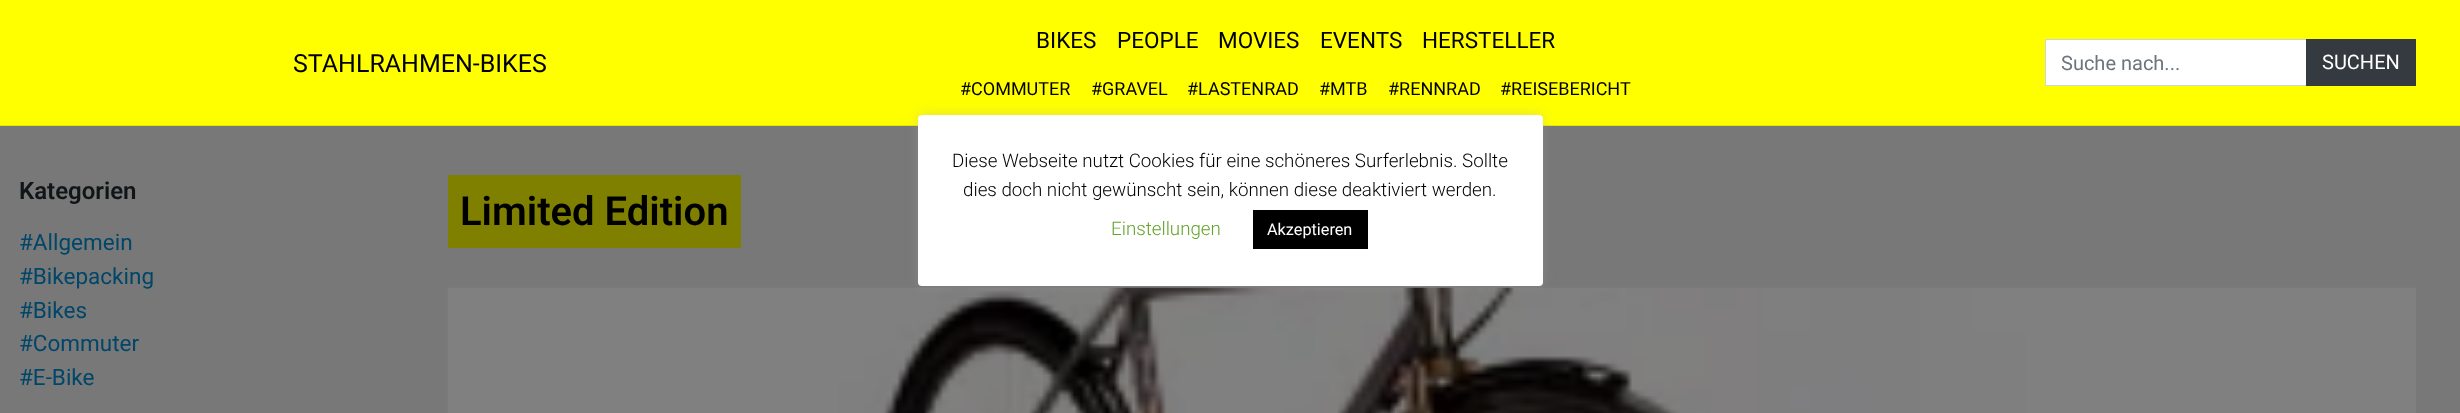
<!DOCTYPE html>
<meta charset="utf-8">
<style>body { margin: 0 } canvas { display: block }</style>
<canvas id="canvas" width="2460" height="413"></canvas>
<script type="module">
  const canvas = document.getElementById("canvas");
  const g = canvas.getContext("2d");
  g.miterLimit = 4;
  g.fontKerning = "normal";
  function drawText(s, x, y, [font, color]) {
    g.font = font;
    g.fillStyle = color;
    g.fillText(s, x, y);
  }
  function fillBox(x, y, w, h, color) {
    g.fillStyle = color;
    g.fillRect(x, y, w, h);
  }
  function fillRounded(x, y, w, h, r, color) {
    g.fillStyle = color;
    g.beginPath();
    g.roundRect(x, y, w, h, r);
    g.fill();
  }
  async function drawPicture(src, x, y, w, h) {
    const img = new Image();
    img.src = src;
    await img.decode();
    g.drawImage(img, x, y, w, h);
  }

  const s1 = ["25px Roboto", "#000000"];
  const s2 = ["22.5px Roboto", "#000000"];
  const s3 = ["18px Roboto", "#000000"];
  const s4 = ["20px Roboto", "#6C757D"];
  const s5 = ["20px Roboto", "#FFFFFF"];
  const s6 = ["600 24px Roboto", "#121517"];
  const s7 = ["22.5px Roboto", "#004668"];
  const s8 = ["600 40px Roboto", "#000000"];
  const s9 = ["300 18.75px Roboto", "#000000"];
  const s10 = ["300 18.75px Roboto", "#62A329"];
  const s11 = ["16.25px Roboto", "#FFFFFF"];

  fillBox(0, 0, 2460, 413, "#787878");
  fillBox(0, 0, 2460, 125, "#FFFF00");
  fillBox(0, 125, 2460, 1, "#E6E600");
  drawText("STAHLRAHMEN-BIKES", 293, 72, s1);
  drawText("BIKES", 1036, 48, s2);
  drawText("PEOPLE", 1117, 48, s2);
  drawText("MOVIES", 1218, 48, s2);
  drawText("EVENTS", 1320, 48, s2);
  drawText("HERSTELLER", 1422, 48, s2);
  drawText("#COMMUTER", 960, 95, s3);
  drawText("#GRAVEL", 1091, 95, s3);
  drawText("#LASTENRAD", 1187, 95, s3);
  drawText("#MTB", 1319, 95, s3);
  drawText("#RENNRAD", 1388, 95, s3);
  drawText("#REISEBERICHT", 1500, 95, s3);
  fillBox(2046, 40, 260, 45, "#FFFFFF");
  g.strokeStyle = "#CED4DA";
  g.strokeRect(2045.5, 39.5, 370, 46);
  drawText("Suche nach...", 2061, 70, s4);
  fillBox(2306, 39, 110, 47, "#343A40");
  drawText("SUCHEN", 2322, 69, s5);
  drawText("Kategorien", 19, 199, s6);
  drawText("#Allgemein", 19, 250, s7);
  drawText("#Bikepacking", 19, 284, s7);
  drawText("#Bikes", 19, 318, s7);
  drawText("#Commuter", 19, 351, s7);
  drawText("#E-Bike", 19, 385, s7);
  g.strokeStyle = "#808000";
  g.lineWidth = 13;
  g.strokeRect(454.5, 181.5, 280, 60);
  fillBox(461, 188, 267, 47, "#808000");
  drawText("Limited Edition", 460, 225, s8);
  await drawPicture("pic1.png", 447, 287, 1969, 126);
  g.fillStyle = "rgba(172, 171, 171, 0.3)";
  g.filter = "blur(6px)";
  g.beginPath();
  g.roundRect(918, 114, 625, 171, 4);
  g.fill();
  g.filter = "none";
  fillRounded(918, 115, 625, 171, 4, "#FFFFFF");
  drawText("Diese Webseite nutzt Cookies für eine schöneres Surferlebnis. Sollte", 952, 167, s9);
  drawText("dies doch nicht gewünscht sein, können diese deaktiviert werden.", 963, 196, s9);
  drawText("Einstellungen", 1111, 235, s10);
  fillBox(1253, 210, 115, 39, "#000000");
  drawText("Akzeptieren", 1267, 235, s11);
</script>
